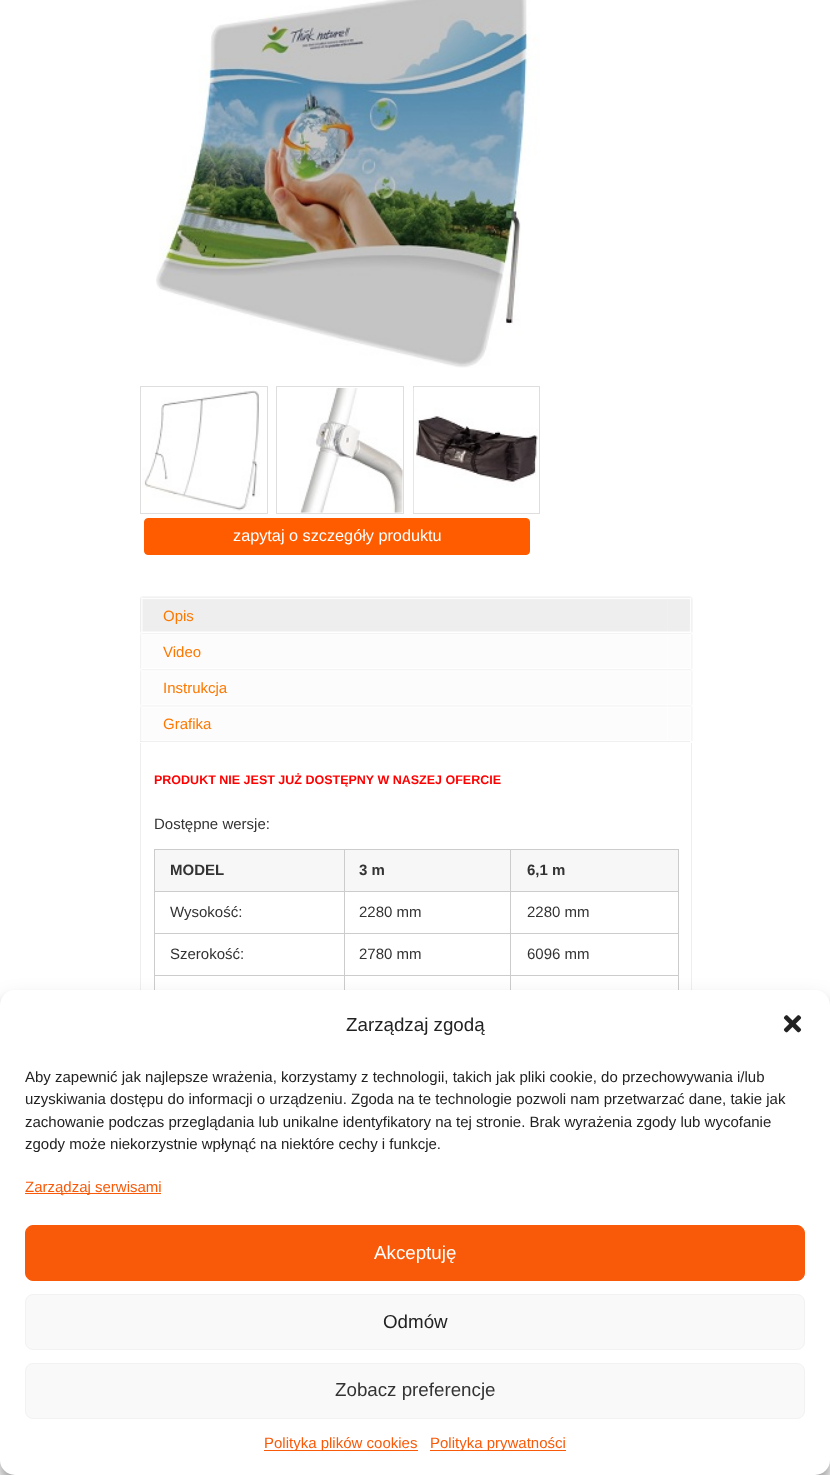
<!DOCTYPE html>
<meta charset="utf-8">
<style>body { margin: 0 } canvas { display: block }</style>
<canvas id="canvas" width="830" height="1475"></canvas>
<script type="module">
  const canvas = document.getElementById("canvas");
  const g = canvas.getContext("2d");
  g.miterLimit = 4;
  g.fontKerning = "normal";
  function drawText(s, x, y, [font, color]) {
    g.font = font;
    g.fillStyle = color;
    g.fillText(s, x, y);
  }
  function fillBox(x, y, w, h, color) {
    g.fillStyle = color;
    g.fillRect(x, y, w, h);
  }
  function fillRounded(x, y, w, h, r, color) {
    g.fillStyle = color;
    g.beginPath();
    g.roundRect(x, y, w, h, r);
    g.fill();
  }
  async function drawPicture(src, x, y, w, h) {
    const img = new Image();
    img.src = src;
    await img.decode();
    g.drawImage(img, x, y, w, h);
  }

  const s1 = ["16.25px Liberation Sans", "#FFFFFF"];
  const s2 = ["15px Liberation Sans", "#FD7800"];
  const s3 = ["bold 12.5px Liberation Sans", "#FF0000"];
  const s4 = ["15px Liberation Sans", "#333333"];
  const s5 = ["bold 15px Liberation Sans", "#333333"];
  const s6 = ["18.75px Liberation Sans", "#222222"];
  const s7 = ["15px Liberation Sans", "#222222"];
  const s8 = ["15px Liberation Sans", "#F95A09"];
  const s9 = ["18.75px Liberation Sans", "#FFFFFF"];
  const s10 = ["18.75px Liberation Sans", "#333333"];

  fillBox(0, 0, 830, 1475, "#FFFFFF");
  await drawPicture("pic1.png", 156, 0, 384, 368);
  g.strokeStyle = "#DEDEDE";
  g.strokeRect(140.5, 386.5, 127, 127);
  await drawPicture("pic2.png", 142, 390, 118, 121);
  g.strokeRect(276.5, 386.5, 127, 127);
  await drawPicture("pic3.png", 299, 387, 104, 126);
  g.strokeRect(413.5, 386.5, 126, 127);
  await drawPicture("pic4.png", 413, 388, 125, 125);
  g.fillStyle = "#FF5C00";
  g.beginPath();
  g.roundRect(144.5, 518.5, 385, 36, 3.5);
  g.fill();
  g.strokeStyle = "#FF5C00";
  g.stroke();
  drawText("zapytaj o szczegóły produktu", 233, 541, s1);
  fillBox(140, 741, 550, 1, "#EEEEEE");
  await drawPicture("pic5.png", 667, 596, 26, 37);
  await drawPicture("pic6.png", 140, 596, 528, 37);
  drawText("Opis", 163, 621, s2);
  await drawPicture("pic7.png", 667, 633, 26, 36);
  await drawPicture("pic8.png", 140, 633, 528, 36);
  drawText("Video", 163, 657, s2);
  await drawPicture("pic9.png", 667, 669, 26, 36);
  await drawPicture("pic10.png", 140, 669, 528, 36);
  drawText("Instrukcja", 163, 693, s2);
  await drawPicture("pic11.png", 667, 705, 26, 37);
  await drawPicture("pic12.png", 140, 705, 527, 37);
  drawText("Grafika", 163, 729, s2);
  fillBox(691, 743, 1, 247, "#EEEEEE");
  fillBox(140, 743, 1, 247, "#EEEEEE");
  drawText("PRODUKT NIE JEST JUŻ DOSTĘPNY W NASZEJ OFERCIE", 154, 784, s3);
  drawText("Dostępne wersje:", 154, 829, s4);
  fillBox(154, 849, 525, 1, "#CCCCCC");
  fillBox(678, 849, 1, 141, "#CCCCCC");
  fillBox(154, 849, 1, 141, "#CCCCCC");
  fillBox(155, 850, 189, 41, "#F7F7F7");
  drawText("MODEL", 170, 875, s5);
  fillBox(345, 850, 165, 41, "#F7F7F7");
  fillBox(510, 891, 169, 1, "#CCCCCC");
  fillBox(510, 933, 169, 1, "#CCCCCC");
  fillBox(510, 975, 169, 1, "#CCCCCC");
  fillBox(510, 975, 1, 15, "#CCCCCC");
  fillBox(344, 975, 167, 1, "#CCCCCC");
  fillBox(510, 933, 1, 43, "#CCCCCC");
  fillBox(344, 933, 167, 1, "#CCCCCC");
  fillBox(510, 891, 1, 43, "#CCCCCC");
  fillBox(344, 891, 167, 1, "#CCCCCC");
  fillBox(344, 975, 1, 15, "#CCCCCC");
  fillBox(154, 975, 191, 1, "#CCCCCC");
  fillBox(344, 933, 1, 43, "#CCCCCC");
  fillBox(154, 933, 191, 1, "#CCCCCC");
  fillBox(344, 891, 1, 43, "#CCCCCC");
  fillBox(154, 891, 191, 1, "#CCCCCC");
  fillBox(344, 849, 1, 44, "#CCCCCC");
  drawText("3 m", 359, 875, s5);
  fillBox(511, 850, 167, 41, "#F7F7F7");
  fillBox(510, 849, 1, 44, "#CCCCCC");
  drawText("6,1 m", 527, 875, s5);
  drawText("Wysokość:", 170, 917, s4);
  drawText("2280 mm", 359, 917, s4);
  drawText("2280 mm", 527, 917, s4);
  drawText("Szerokość:", 170, 959, s4);
  drawText("2780 mm", 359, 959, s4);
  drawText("6096 mm", 527, 959, s4);
  g.fillStyle = "rgba(0, 0, 0, 0.23)";
  g.filter = "blur(4px)";
  g.beginPath();
  g.roundRect(0, 998, 830, 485, 15);
  g.fill();
  g.filter = "none";
  g.fillStyle = "rgba(0, 0, 0, 0.19)";
  g.filter = "blur(12.5px)";
  g.beginPath();
  g.roundRect(0, 1003, 830, 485, 15);
  g.fill();
  g.filter = "none";
  fillRounded(0, 990, 830, 485, 15, "#FFFFFF");
  drawText("Zarządzaj zgodą", 346, 1031, s6);
  await drawPicture("pic13.png", 783, 1015, 19, 18);
  drawText("Aby zapewnić jak najlepsze wrażenia, korzystamy z technologii, takich jak pliki cookie, do przechowywania i/lub", 25, 1082, s7);
  drawText("uzyskiwania dostępu do informacji o urządzeniu. Zgoda na te technologie pozwoli nam przetwarzać dane, takie jak", 25, 1104, s7);
  drawText("zachowanie podczas przeglądania lub unikalne identyfikatory na tej stronie. Brak wyrażenia zgody lub wycofanie", 25, 1127, s7);
  drawText("zgody może niekorzystnie wpłynąć na niektóre cechy i funkcje.", 25, 1149, s7);
  fillBox(25, 1193, 136, 1, "#F95A09");
  drawText("Zarządzaj serwisami", 25, 1192, s8);
  g.beginPath();
  g.roundRect(25.5, 1225.5, 779, 55, 7.5);
  g.fill();
  g.strokeStyle = "#F95A09";
  g.stroke();
  drawText("Akceptuję", 374, 1259, s9);
  g.fillStyle = "#F9F9F9";
  g.beginPath();
  g.roundRect(25.5, 1294.5, 779, 55, 7.5);
  g.fill();
  g.strokeStyle = "#F2F2F2";
  g.stroke();
  drawText("Odmów", 383, 1328, s6);
  g.fillStyle = "#F9F9F9";
  g.beginPath();
  g.roundRect(25.5, 1363.5, 779, 55, 7.5);
  g.fill();
  g.stroke();
  drawText("Zobacz preferencje", 335, 1396, s10);
  fillBox(264, 1450, 154, 1, "#F95A09");
  drawText("Polityka plików cookies", 264, 1448, s8);
  fillBox(430, 1450, 136, 1, "#F95A09");
  drawText("Polityka prywatności", 430, 1448, s8);
</script>
